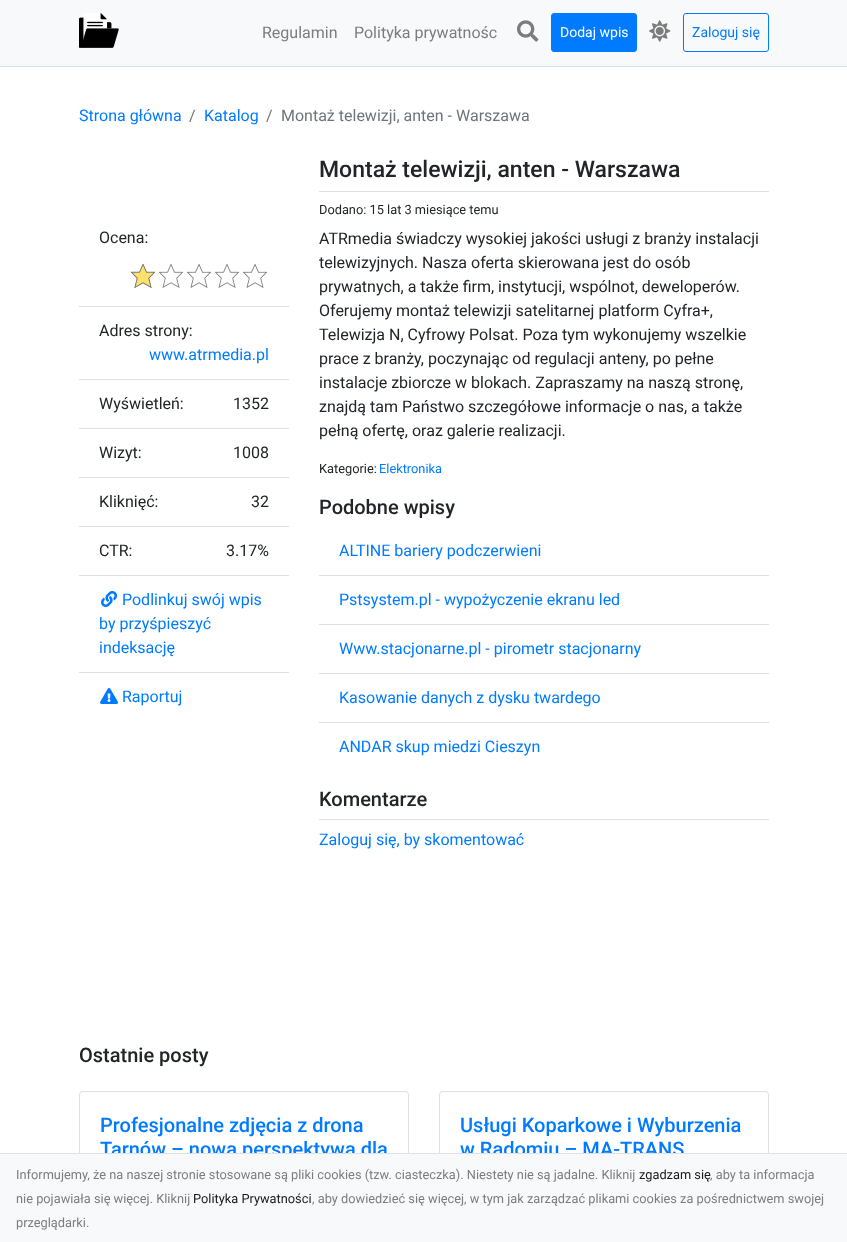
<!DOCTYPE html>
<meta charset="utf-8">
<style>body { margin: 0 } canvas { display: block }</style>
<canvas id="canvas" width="847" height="1242"></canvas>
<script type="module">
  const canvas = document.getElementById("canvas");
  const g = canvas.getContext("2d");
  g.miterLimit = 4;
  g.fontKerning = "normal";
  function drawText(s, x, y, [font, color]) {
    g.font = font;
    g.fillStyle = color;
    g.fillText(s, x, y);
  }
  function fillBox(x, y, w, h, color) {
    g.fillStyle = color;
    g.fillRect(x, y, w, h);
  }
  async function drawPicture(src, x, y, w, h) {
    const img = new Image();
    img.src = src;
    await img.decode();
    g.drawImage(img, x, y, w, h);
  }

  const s1 = ["16px Roboto", "#7C7D7D"];
  const s2 = ["14px Roboto", "#FFFFFF"];
  const s3 = ["14px Roboto", "#007BFF"];
  const s4 = ["16px Roboto", "#007BFF"];
  const s5 = ["16px Roboto", "#6C757D"];
  const s6 = ["16px Roboto", "#212529"];
  const s7 = ["500 23px Roboto", "#212529"];
  const s8 = ["12.8px Roboto", "#212529"];
  const s9 = ["12.8px Roboto", "#007BFF"];
  const s10 = ["500 20px Roboto", "#212529"];
  const s11 = ["500 20px Roboto", "#007BFF"];
  const s12 = ["12.8px Roboto", "#7C7D7D"];
  const s13 = ["12.8px Roboto", "#191919"];

  fillBox(0, 0, 847, 1242, "#FFFFFF");
  fillBox(0, 0, 847, 66, "#F8F9FA");
  fillBox(0, 66, 847, 1, "#DEE2E6");
  await drawPicture("pic1.png", 79, 13, 40, 35);
  drawText("Regulamin", 262, 38, s1);
  drawText("Polityka prywatnośc", 354, 38, s1);
  await drawPicture("pic2.png", 517, 20, 22, 22);
  g.fillStyle = "#007BFF";
  g.beginPath();
  g.roundRect(551.5, 13.5, 85, 38, 2.5);
  g.fill();
  g.strokeStyle = "#007BFF";
  g.stroke();
  drawText("Dodaj wpis", 560, 37, s2);
  await drawPicture("pic3.png", 649, 20, 22, 22);
  g.beginPath();
  g.roundRect(683.5, 13.5, 85, 38, 2.5);
  g.stroke();
  drawText("Zaloguj się", 692, 37, s3);
  drawText("Strona główna", 79, 121, s4);
  drawText("/", 189, 121, s5);
  drawText("Katalog", 204, 121, s4);
  drawText("/", 266, 121, s5);
  drawText("Montaż telewizji, anten - Warszawa", 281, 121, s5);
  fillBox(79, 306, 210, 1, "#DFDFDF");
  drawText("Ocena:", 99, 243, s6);
  await drawPicture("pic4.png", 131, 264, 24, 24);
  await drawPicture("pic4.png", 159, 264, 24, 24);
  await drawPicture("pic4.png", 187, 264, 24, 24);
  await drawPicture("pic4.png", 215, 264, 24, 24);
  await drawPicture("pic4.png", 243, 264, 24, 24);
  await drawPicture("pic5.png", 131, 264, 24, 24);
  fillBox(79, 379, 210, 1, "#DFDFDF");
  drawText("Adres strony:", 99, 336, s6);
  drawText("www.atrmedia.pl", 149, 360, s4);
  fillBox(79, 428, 210, 1, "#DFDFDF");
  drawText("Wyświetleń:", 99, 409, s6);
  drawText("1352", 233, 409, s6);
  fillBox(79, 477, 210, 1, "#DFDFDF");
  drawText("Wizyt:", 99, 458, s6);
  drawText("1008", 233, 458, s6);
  fillBox(79, 526, 210, 1, "#DFDFDF");
  drawText("Kliknięć:", 99, 507, s6);
  drawText("32", 251, 507, s6);
  fillBox(79, 575, 210, 1, "#DFDFDF");
  drawText("CTR:", 99, 556, s6);
  drawText("3.17%", 226, 556, s6);
  fillBox(79, 672, 210, 1, "#DFDFDF");
  await drawPicture("pic6.png", 101, 591, 16, 16);
  drawText("Podlinkuj swój wpis", 122, 605, s4);
  drawText("by przyśpieszyć", 99, 629, s4);
  drawText("indeksację", 99, 653, s4);
  await drawPicture("pic7.png", 100, 688, 18, 16);
  drawText("Raportuj", 122, 702, s4);
  fillBox(319, 191, 450, 1, "#DEE2E6");
  drawText("Montaż telewizji, anten - Warszawa", 319, 177, s7);
  drawText("Dodano: 15 lat 3 miesiące temu", 319, 214, s8);
  drawText("ATRmedia świadczy wysokiej jakości usługi z branży instalacji", 319, 244, s6);
  drawText("telewizyjnych. Nasza oferta skierowana jest do osób", 319, 268, s6);
  drawText("prywatnych, a także firm, instytucji, wspólnot, deweloperów.", 319, 292, s6);
  drawText("Oferujemy montaż telewizji satelitarnej platform Cyfra+,", 319, 316, s6);
  drawText("Telewizja N, Cyfrowy Polsat. Poza tym wykonujemy wszelkie", 319, 340, s6);
  drawText("prace z branży, poczynając od regulacji anteny, po pełne", 319, 364, s6);
  drawText("instalacje zbiorcze w blokach. Zapraszamy na naszą stronę,", 319, 388, s6);
  drawText("znajdą tam Państwo szczegółowe informacje o nas, a także", 319, 412, s6);
  drawText("pełną ofertę, oraz galerie realizacji.", 319, 436, s6);
  drawText("Kategorie:", 319, 473, s8);
  drawText("Elektronika", 379, 473, s9);
  drawText("Podobne wpisy", 319, 514, s10);
  fillBox(319, 575, 450, 1, "#DFDFDF");
  drawText("ALTINE bariery podczerwieni", 339, 556, s4);
  fillBox(319, 624, 450, 1, "#DFDFDF");
  drawText("Pstsystem.pl - wypożyczenie ekranu led", 339, 605, s4);
  fillBox(319, 673, 450, 1, "#DFDFDF");
  drawText("Www.stacjonarne.pl - pirometr stacjonarny", 339, 654, s4);
  fillBox(319, 722, 450, 1, "#DFDFDF");
  drawText("Kasowanie danych z dysku twardego", 339, 703, s4);
  drawText("ANDAR skup miedzi Cieszyn", 339, 752, s4);
  fillBox(319, 819, 450, 1, "#DEE2E6");
  drawText("Komentarze", 319, 806, s10);
  drawText("Zaloguj się, by skomentować", 319, 845, s4);
  drawText("Ostatnie posty", 79, 1062, s10);
  g.beginPath();
  g.roundRect(79.5, 1091.5, 329, 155, 3.5);
  g.strokeStyle = "#DFDFDF";
  g.stroke();
  drawText("Profesjonalne zdjęcia z drona", 100, 1132, s11);
  drawText("Tarnów – nowa perspektywa dla", 100, 1156, s11);
  g.beginPath();
  g.roundRect(439.5, 1091.5, 329, 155, 3.5);
  g.stroke();
  drawText("Usługi Koparkowe i Wyburzenia", 460, 1132, s11);
  drawText("w Radomiu – MA-TRANS", 460, 1156, s11);
  fillBox(0, 1154, 847, 88, "#F8F9FA");
  fillBox(0, 1153, 847, 1, "#DEE2E6");
  drawText("Informujemy, że na naszej stronie stosowane są pliki cookies (tzw. ciasteczka). Niestety nie są jadalne. Kliknij", 16, 1179, s12);
  drawText("zgadzam się", 639, 1179, s13);
  drawText(", aby ta informacja", 710, 1179, s12);
  drawText("nie pojawiała się więcej. Kliknij", 16, 1203, s12);
  drawText("Polityka Prywatności", 193, 1203, s13);
  drawText(", aby dowiedzieć się więcej, w tym jak zarządzać plikami cookies za pośrednictwem swojej", 312, 1203, s12);
  drawText("przeglądarki.", 16, 1227, s12);
</script>
